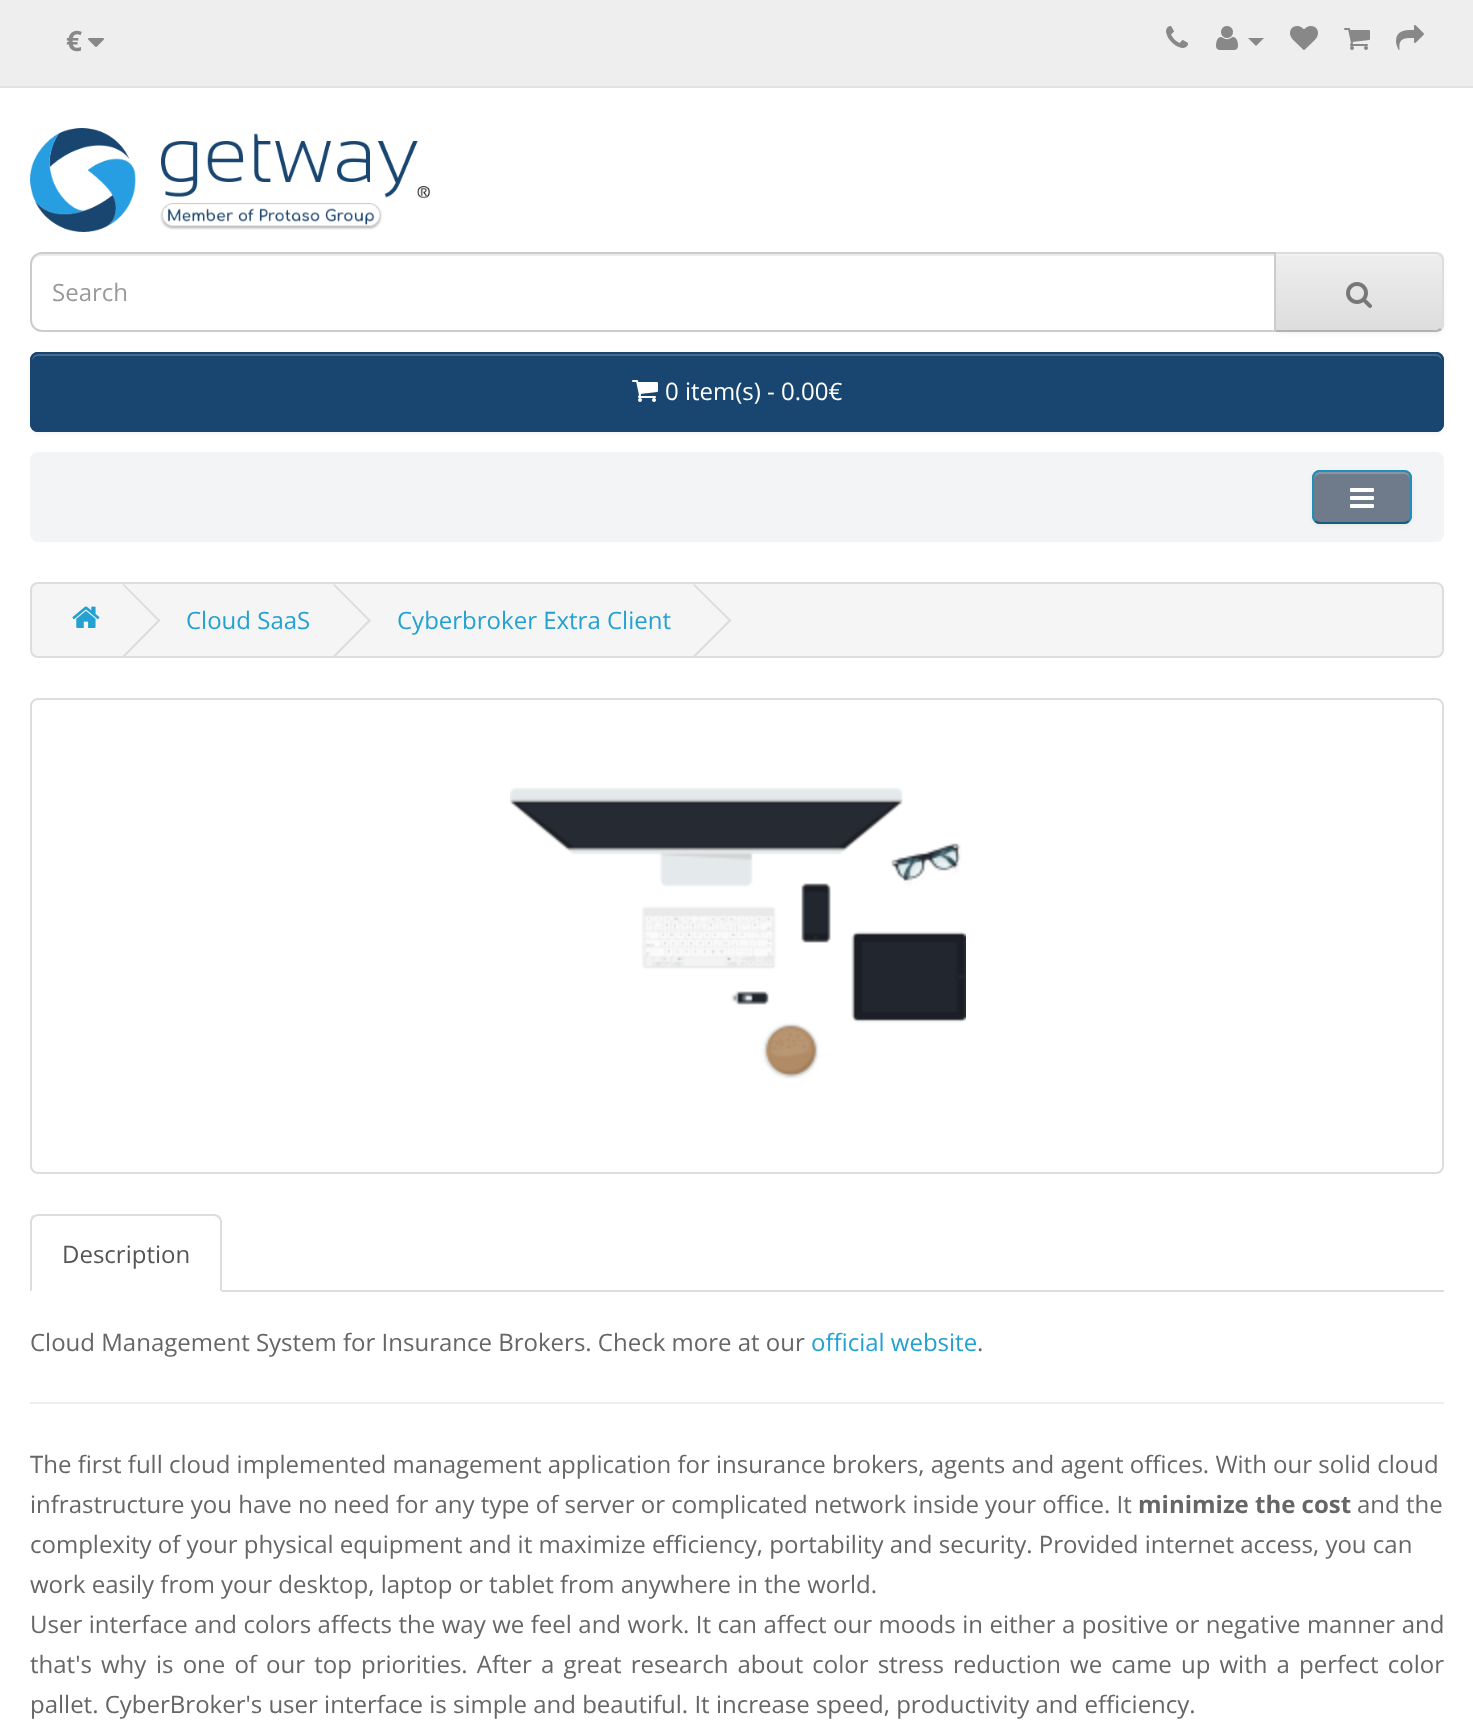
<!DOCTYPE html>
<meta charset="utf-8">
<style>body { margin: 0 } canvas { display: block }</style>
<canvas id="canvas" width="1473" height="1723"></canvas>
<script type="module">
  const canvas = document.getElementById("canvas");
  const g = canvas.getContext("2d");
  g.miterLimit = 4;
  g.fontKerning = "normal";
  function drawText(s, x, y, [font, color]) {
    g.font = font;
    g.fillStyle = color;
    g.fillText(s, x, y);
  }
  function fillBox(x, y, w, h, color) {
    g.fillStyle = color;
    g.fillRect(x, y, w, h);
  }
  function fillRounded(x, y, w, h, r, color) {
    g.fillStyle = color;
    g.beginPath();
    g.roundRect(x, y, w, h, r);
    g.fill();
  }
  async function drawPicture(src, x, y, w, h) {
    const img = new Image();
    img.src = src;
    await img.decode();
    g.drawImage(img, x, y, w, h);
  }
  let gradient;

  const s1 = ["bold 28px Open Sans", "#888888"];
  const s2 = ["24px Open Sans", "#999999"];
  const s3 = ["24px Open Sans", "#FFFFFF"];
  const s4 = ["24px Open Sans", "#23A1D1"];
  const s5 = ["24px Open Sans", "#555555"];
  const s6 = ["24px Open Sans", "#666666"];
  const s7 = ["bold 24px Open Sans", "#666666"];

  fillBox(0, 0, 1473, 1723, "#FFFFFF");
  fillBox(0, 0, 1473, 86, "#EEEEEE");
  fillBox(0, 86, 1473, 2, "#E2E2E2");
  drawText("€", 66, 51, s1);
  await drawPicture("pic1.png", 88, 38, 16, 9);
  await drawPicture("pic2.png", 1166, 26, 22, 22);
  await drawPicture("pic3.png", 1216, 26, 22, 24);
  g.beginPath();
  g.moveTo(1248, 38);
  g.lineTo(1264, 38);
  g.lineTo(1256, 46);
  g.closePath();
  g.fill();
  await drawPicture("pic4.png", 1290, 26, 28, 24);
  await drawPicture("pic5.png", 1344, 28, 26, 22);
  await drawPicture("pic6.png", 1396, 25, 28, 25);
  await drawPicture("pic7.png", 30, 128, 400, 104);
  g.fillStyle = "rgba(0, 0, 0, 0.05)";
  g.filter = "blur(2px)";
  g.beginPath();
  g.roundRect(1274, 254, 170, 80, 8);
  g.fill();
  g.filter = "none";
  g.save();
  g.beginPath();
  g.roundRect(1274, 252, 170, 80, [0, 8, 8, 0]);
  g.clip();
  gradient = g.createLinearGradient(1359, 254, 1359, 330);
  gradient.addColorStop(0, "#EEEEEE");
  gradient.addColorStop(1, "#DDDDDD");
  g.fillStyle = gradient;
  g.fillRect(1276, 254, 168, 76);
  g.restore();
  g.fillStyle = "#F1F1F1";
  g.beginPath();
  g.moveTo(1276, 256);
  g.lineTo(1436, 256);
  g.bezierCurveTo(1439, 256, 1442, 259, 1442, 262);
  g.lineTo(1442, 260);
  g.bezierCurveTo(1442, 257, 1439, 254, 1436, 254);
  g.lineTo(1276, 254);
  g.closePath();
  g.fill();
  g.fillStyle = "#DDDDDD";
  g.beginPath();
  g.moveTo(1274, 252);
  g.lineTo(1276, 254);
  g.lineTo(1437, 254);
  g.lineTo(1440, 256);
  g.lineTo(1442, 254);
  g.bezierCurveTo(1440, 253, 1438, 252, 1436, 252);
  g.closePath();
  g.fill();
  g.beginPath();
  g.moveTo(1444, 324);
  g.lineTo(1444, 260);
  g.bezierCurveTo(1444, 258, 1443, 256, 1442, 254);
  g.lineTo(1440, 256);
  g.bezierCurveTo(1441, 257, 1442, 258, 1442, 260);
  g.lineTo(1442, 324);
  g.bezierCurveTo(1442, 326, 1441, 327, 1440, 328);
  g.lineTo(1442, 330);
  g.bezierCurveTo(1443, 328, 1444, 326, 1444, 324);
  g.closePath();
  g.fill();
  g.fillStyle = "#B3B3B3";
  g.beginPath();
  g.moveTo(1436, 332);
  g.bezierCurveTo(1438, 332, 1440, 331, 1442, 330);
  g.lineTo(1440, 328);
  g.lineTo(1437, 330);
  g.lineTo(1276, 330);
  g.lineTo(1274, 332);
  g.closePath();
  g.fill();
  g.fillStyle = "#FFFFFF";
  g.beginPath();
  g.roundRect(30, 252, 1246, 80, [12, 0, 0, 12]);
  g.fill();
  g.fillStyle = "#ECECEC";
  g.beginPath();
  g.moveTo(42, 256);
  g.lineTo(1274, 256);
  g.lineTo(1274, 254);
  g.lineTo(42, 254);
  g.bezierCurveTo(35, 254, 32, 260, 32, 266);
  g.bezierCurveTo(32, 260, 36, 256, 42, 256);
  g.closePath();
  g.fill();
  g.beginPath();
  g.roundRect(31, 253, 1244, 78, [11, 0, 0, 11]);
  g.strokeStyle = "#CCCCCC";
  g.lineWidth = 2;
  g.stroke();
  drawText("Search", 52, 301, s2);
  await drawPicture("pic8.png", 1346, 282, 26, 26);
  g.fillStyle = "rgba(0, 0, 0, 0.05)";
  g.filter = "blur(2px)";
  g.beginPath();
  g.roundRect(30, 354, 1414, 80, 8);
  g.fill();
  g.filter = "none";
  fillRounded(30, 352, 1414, 80, 8, "#184671");
  g.fillStyle = "#466B8D";
  g.beginPath();
  g.moveTo(38, 356);
  g.lineTo(1436, 356);
  g.bezierCurveTo(1439, 356, 1442, 359, 1442, 362);
  g.bezierCurveTo(1442, 358, 1441, 354, 1436, 354);
  g.lineTo(38, 354);
  g.bezierCurveTo(33, 354, 32, 358, 32, 362);
  g.bezierCurveTo(32, 359, 35, 356, 38, 356);
  g.closePath();
  g.fill();
  g.beginPath();
  g.roundRect(31, 353, 1412, 78, 7);
  g.strokeStyle = "#184671";
  g.stroke();
  await drawPicture("pic9.png", 632, 380, 26, 22);
  drawText("0 item(s) - 0.00€", 665, 400, s3);
  g.fillStyle = "#F2F4F6";
  g.beginPath();
  g.roundRect(31, 453, 1412, 88, 7);
  g.fill();
  g.strokeStyle = "#F2F4F6";
  g.stroke();
  g.fillStyle = "rgba(0, 0, 0, 0.05)";
  g.filter = "blur(2px)";
  g.beginPath();
  g.roundRect(1312, 472, 100, 54, 8);
  g.fill();
  g.filter = "none";
  fillRounded(1312, 470, 100, 54, 8, "#6F7B8A");
  g.fillStyle = "#8C95A1";
  g.beginPath();
  g.moveTo(1320, 474);
  g.lineTo(1404, 474);
  g.bezierCurveTo(1407, 474, 1410, 477, 1410, 480);
  g.bezierCurveTo(1410, 468, 1399, 472, 1390, 472);
  g.lineTo(1334, 472);
  g.bezierCurveTo(1325, 472, 1314, 468, 1314, 480);
  g.bezierCurveTo(1314, 477, 1317, 474, 1320, 474);
  g.closePath();
  g.fill();
  g.beginPath();
  g.moveTo(1409, 521);
  g.bezierCurveTo(1407.5, 522.5, 1406, 523, 1404, 523);
  g.lineTo(1320, 523);
  g.bezierCurveTo(1318, 523, 1316.5, 522.5, 1315, 521);
  g.strokeStyle = "#145E7A";
  g.stroke();
  g.beginPath();
  g.moveTo(1315, 521);
  g.bezierCurveTo(1313.5, 519.5, 1313, 518, 1313, 516);
  g.lineTo(1313, 478);
  g.bezierCurveTo(1313, 476, 1313.5, 474.5, 1315, 473);
  g.bezierCurveTo(1316.5, 471.5, 1318, 471, 1320, 471);
  g.lineTo(1404, 471);
  g.bezierCurveTo(1406, 471, 1407.5, 471.5, 1409, 473);
  g.bezierCurveTo(1410.5, 474.5, 1411, 476, 1411, 478);
  g.lineTo(1411, 516);
  g.bezierCurveTo(1411, 518, 1410.5, 519.5, 1409, 521);
  g.strokeStyle = "#1F90BB";
  g.stroke();
  await drawPicture("pic10.png", 1350, 488, 24, 20);
  g.fillStyle = "#F5F5F5";
  g.beginPath();
  g.roundRect(31, 583, 1412, 74, 7);
  g.fill();
  g.strokeStyle = "#DDDDDD";
  g.stroke();
  await drawPicture("pic11.png", 72, 606, 28, 22);
  g.fillStyle = "#DDDDDD";
  g.beginPath();
  g.moveTo(122.5, 585);
  g.lineTo(124, 584);
  g.lineTo(160.5, 620.5);
  g.lineTo(159, 622);
  g.closePath();
  g.fill();
  g.beginPath();
  g.moveTo(122.5, 656);
  g.lineTo(159, 619);
  g.lineTo(160.5, 620.5);
  g.lineTo(124, 657.5);
  g.closePath();
  g.fill();
  drawText("Cloud SaaS", 186, 629, s4);
  g.fillStyle = "#DDDDDD";
  g.beginPath();
  g.moveTo(333, 585);
  g.lineTo(334.5, 584);
  g.lineTo(371, 620.5);
  g.lineTo(369.5, 622);
  g.closePath();
  g.fill();
  g.beginPath();
  g.moveTo(333, 656);
  g.lineTo(369.5, 619);
  g.lineTo(371, 620.5);
  g.lineTo(334.5, 657.5);
  g.closePath();
  g.fill();
  drawText("Cyberbroker Extra Client", 397, 629, s4);
  g.fillStyle = "#DDDDDD";
  g.beginPath();
  g.moveTo(693, 585);
  g.lineTo(694.5, 584);
  g.lineTo(731.5, 620.5);
  g.lineTo(730, 622);
  g.closePath();
  g.fill();
  g.beginPath();
  g.moveTo(693, 656);
  g.lineTo(730, 619);
  g.lineTo(731.5, 620.5);
  g.lineTo(694.5, 657.5);
  g.closePath();
  g.fill();
  g.beginPath();
  g.roundRect(31, 699, 1412, 474, 7);
  g.stroke();
  await drawPicture("pic12.png", 510, 787, 456, 292);
  fillBox(222, 1290, 1222, 2, "#DDDDDD");
  g.beginPath();
  g.moveTo(38, 1214);
  g.bezierCurveTo(36, 1214, 34, 1215, 32, 1216);
  g.lineTo(34, 1218);
  g.bezierCurveTo(35, 1217, 36, 1216, 38, 1216);
  g.lineTo(214, 1216);
  g.bezierCurveTo(216, 1216, 217, 1217, 218, 1218);
  g.lineTo(220, 1216);
  g.bezierCurveTo(218, 1215, 216, 1214, 214, 1214);
  g.closePath();
  g.fill();
  g.beginPath();
  g.moveTo(222, 1292);
  g.lineTo(222, 1222);
  g.bezierCurveTo(222, 1220, 221, 1218, 220, 1216);
  g.lineTo(218, 1218);
  g.bezierCurveTo(219, 1219, 220, 1220, 220, 1222);
  g.lineTo(220, 1290);
  g.closePath();
  g.fill();
  g.beginPath();
  g.moveTo(30, 1292);
  g.lineTo(32, 1290);
  g.lineTo(32, 1222);
  g.bezierCurveTo(32, 1220, 33, 1219, 34, 1218);
  g.lineTo(32, 1216);
  g.bezierCurveTo(31, 1218, 30, 1220, 30, 1222);
  g.closePath();
  g.fill();
  drawText("Description", 62, 1263, s5);
  drawText("Cloud Management System for Insurance Brokers. Check more at our", 30, 1351, s6);
  drawText("official website", 811, 1351, s4);
  drawText(".", 977, 1351, s6);
  fillBox(30, 1402, 1414, 2, "#EEEEEE");
  drawText("The first full cloud implemented management application for insurance brokers, agents and agent offices. With our solid cloud", 30, 1473, s6);
  drawText("infrastructure you have no need for any type of server or complicated network inside your office. It", 30, 1513, s6);
  drawText("minimize the cost", 1138, 1513, s7);
  drawText("and the", 1357, 1513, s6);
  drawText("complexity of your physical equipment and it maximize efficiency, portability and security. Provided internet access, you can", 30, 1553, s6);
  drawText("work easily from your desktop, laptop or tablet from anywhere in the world.", 30, 1593, s6);
  g.wordSpacing = "0.25px";
  drawText("User interface and colors affects the way we feel and work. It can affect our moods in either a positive or negative manner and", 30, 1633, s6);
  g.wordSpacing = "2.9px";
  drawText("that's why", 30, 1673, s6);
  drawText("is one of our top priorities. After a great research about color stress", 156, 1673, s6);
  drawText("reduction we came up with a perfect color", 953, 1673, s6);
  g.wordSpacing = "0px";
  drawText("pallet. CyberBroker's user interface is simple and beautiful. It increase speed, productivity and efficiency.", 30, 1713, s6);
</script>
